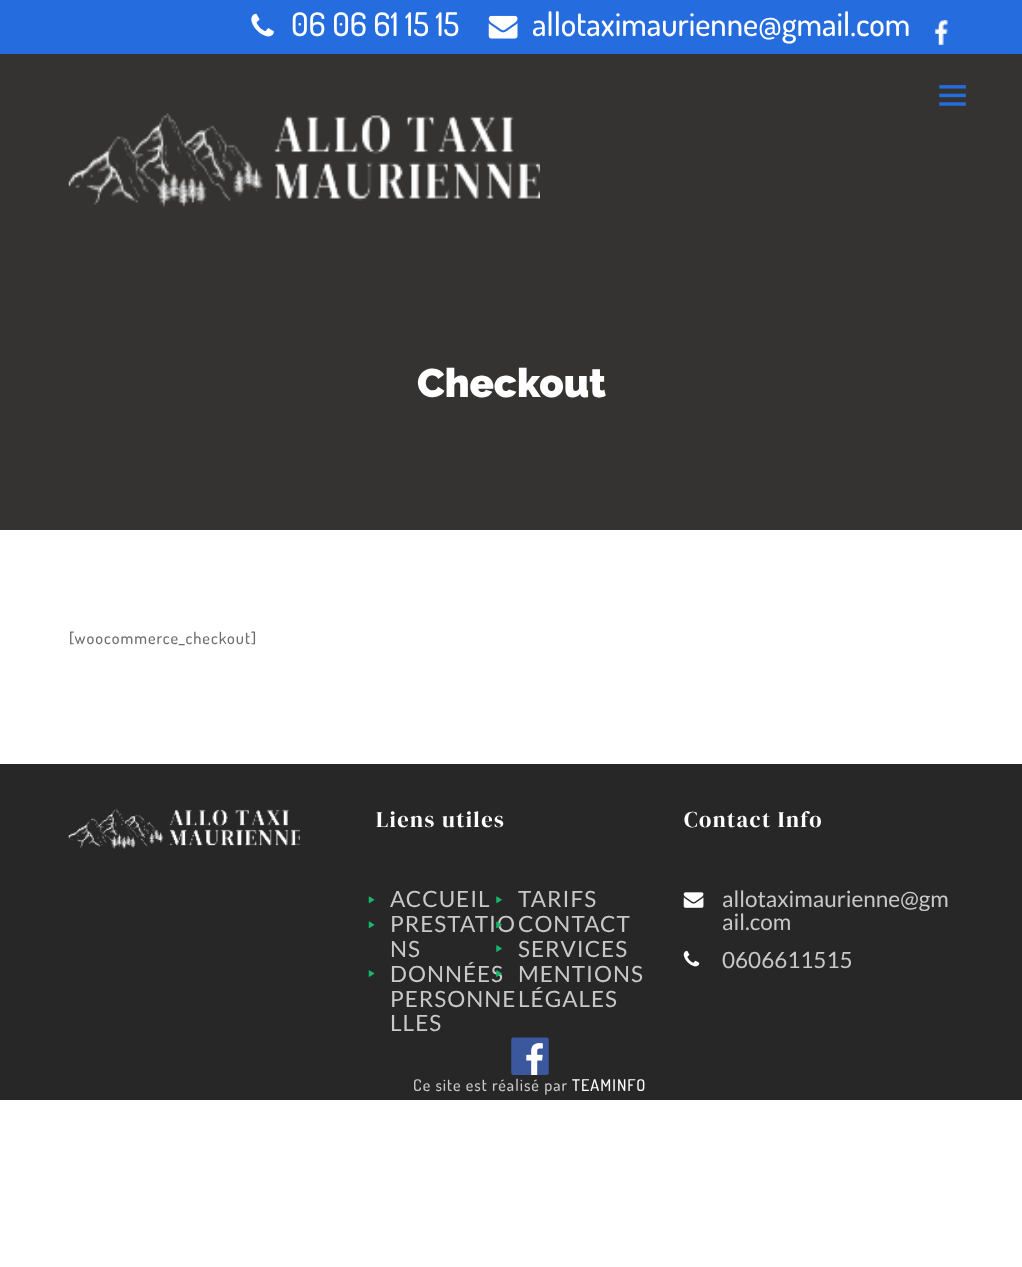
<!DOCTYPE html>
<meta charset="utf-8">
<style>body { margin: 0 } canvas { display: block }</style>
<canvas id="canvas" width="1022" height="1267"></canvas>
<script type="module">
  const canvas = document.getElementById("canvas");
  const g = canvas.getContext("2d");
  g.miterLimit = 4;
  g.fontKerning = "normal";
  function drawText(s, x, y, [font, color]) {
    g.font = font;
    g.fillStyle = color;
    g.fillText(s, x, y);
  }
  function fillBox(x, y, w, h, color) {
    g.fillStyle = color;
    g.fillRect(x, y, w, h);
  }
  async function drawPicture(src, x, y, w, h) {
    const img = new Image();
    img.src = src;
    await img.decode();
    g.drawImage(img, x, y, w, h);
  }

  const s1 = ["500 32.5px Dosis", "#FFFFFF"];
  const s2 = ["900 40px Raleway", "#FFFFFF"];
  const s3 = ["500 16.25px Dosis", "#6D6D6D"];
  const s4 = ["22.5px DM Serif Display", "#FFFFFF"];
  const s5 = ["22.5px Lato", "#C8C8C8"];
  const s6 = ["500 16.25px Dosis", "#C8C8C8"];
  const s7 = ["500 16.25px Dosis", "#FFFFFF"];

  fillBox(0, 0, 1022, 1267, "#FFFFFF");
  fillBox(0, 0, 1022, 54, "#256CDE");
  await drawPicture("pic1.png", 251, 13, 23, 24);
  drawText("06 06 61 15 15", 291, 36, s1);
  await drawPicture("pic2.png", 488, 15, 30, 24);
  drawText("allotaximaurienne@gmail.com", 532, 36, s1);
  await drawPicture("pic3.png", 934, 20, 14, 25);
  fillBox(0, 54, 1022, 476, "#343332");
  await drawPicture("pic4.png", 939, 85, 27, 21);
  await drawPicture("pic5.png", 68, 113, 472, 94);
  drawText("Checkout", 417, 397, s2);
  g.letterSpacing = "1px";
  drawText("[woocommerce_checkout]", 69, 644, s3);
  fillBox(0, 764, 1022, 336, "#272727");
  await drawPicture("pic6.png", 68, 808, 232, 41);
  g.letterSpacing = "1.4px";
  drawText("Liens utiles", 376, 827, s4);
  await drawPicture("pic7.png", 368, 896, 7, 8);
  g.letterSpacing = "1px";
  drawText("ACCUEIL", 390, 907, s5);
  await drawPicture("pic8.png", 496, 896, 6, 8);
  drawText("TARIFS", 518, 907, s5);
  await drawPicture("pic7.png", 368, 921, 7, 8);
  drawText("PRESTATIO", 390, 932, s5);
  drawText("NS", 390, 957, s5);
  await drawPicture("pic9.png", 496, 921, 6, 8);
  drawText("CONTACT", 518, 932, s5);
  await drawPicture("pic10.png", 496, 945, 6, 7);
  drawText("SERVICES", 518, 957, s5);
  await drawPicture("pic11.png", 368, 970, 7, 7);
  drawText("DONNÉES", 390, 982, s5);
  drawText("PERSONNE", 390, 1007, s5);
  drawText("LLES", 390, 1031, s5);
  await drawPicture("pic12.png", 496, 970, 6, 7);
  drawText("MENTIONS", 518, 982, s5);
  drawText("LÉGALES", 518, 1007, s5);
  g.letterSpacing = "1.4px";
  drawText("Contact Info", 684, 827, s4);
  await drawPicture("pic13.png", 683, 892, 21, 16);
  g.letterSpacing = "0px";
  drawText("allotaximaurienne@gm", 722, 907, s5);
  drawText("ail.com", 722, 930, s5);
  await drawPicture("pic14.png", 683, 950, 17, 17);
  drawText("0606611515", 722, 968, s5);
  await drawPicture("pic15.png", 511, 1037, 38, 38);
  g.letterSpacing = "1px";
  drawText("Ce site est réalisé par", 413, 1091, s6);
  drawText("TEAMINFO", 572, 1091, s7);
</script>
